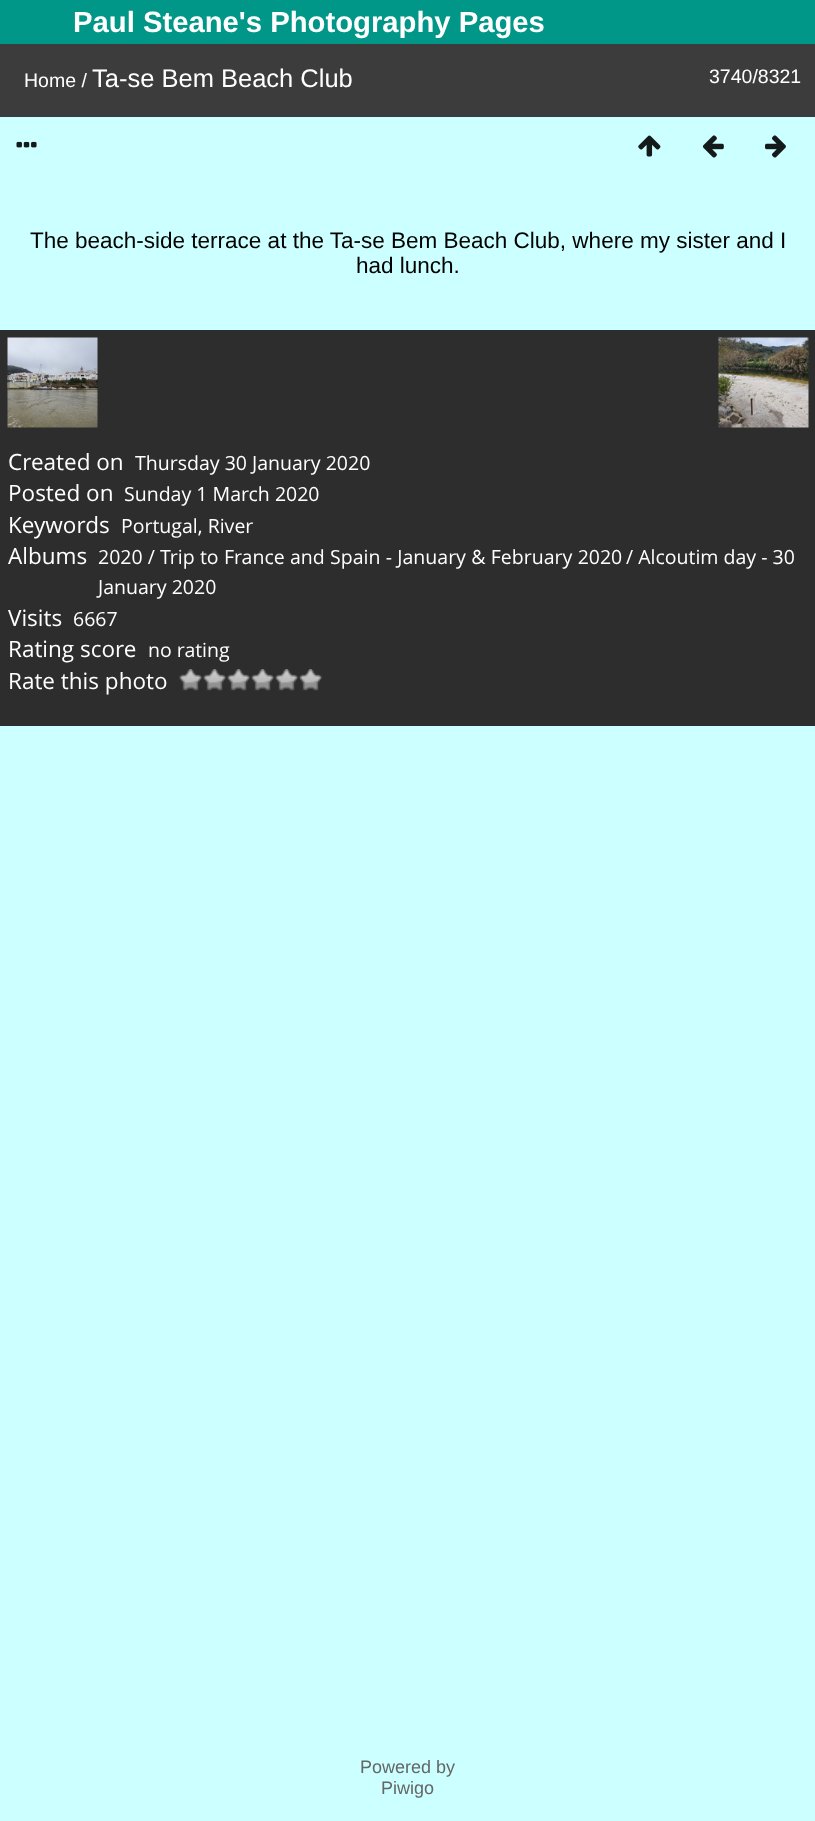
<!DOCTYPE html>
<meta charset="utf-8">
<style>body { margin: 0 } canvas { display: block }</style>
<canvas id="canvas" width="815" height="1821"></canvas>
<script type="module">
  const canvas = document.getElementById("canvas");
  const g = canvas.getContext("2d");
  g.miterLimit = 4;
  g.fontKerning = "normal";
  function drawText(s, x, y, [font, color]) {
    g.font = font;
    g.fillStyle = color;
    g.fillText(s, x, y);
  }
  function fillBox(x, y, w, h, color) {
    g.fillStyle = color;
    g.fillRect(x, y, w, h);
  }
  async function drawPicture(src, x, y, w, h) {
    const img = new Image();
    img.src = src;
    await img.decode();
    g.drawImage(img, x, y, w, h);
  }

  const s1 = ["bold 29.25px Liberation Sans", "#FFFFFF"];
  const s2 = ["19.5px Liberation Sans", "#FFFFFF"];
  const s3 = ["25.5px Liberation Sans", "#FFFFFF"];
  const s4 = ["22.5px Liberation Sans", "#000000"];
  const s5 = ["22.5px Open Sans", "#FFFFFF"];
  const s6 = ["19.5px Open Sans", "#FFFFFF"];
  const s7 = ["18px Liberation Sans", "#666666"];

  fillBox(0, 0, 815, 1821, "#CCFFFF");
  fillBox(0, 0, 815, 44, "#009688");
  drawText("Paul Steane's Photography Pages", 73, 32, s1);
  fillBox(0, 44, 815, 73, "#3C3C3C");
  drawText("Home /", 24, 87, s2);
  drawText("Ta-se Bem Beach Club", 92, 87, s3);
  drawText("3740/8321", 709, 83, s2);
  await drawPicture("pic1.png", 16, 141, 21, 7);
  await drawPicture("pic2.png", 638, 135, 23, 22);
  await drawPicture("pic3.png", 702, 135, 22, 23);
  await drawPicture("pic4.png", 765, 135, 21, 23);
  drawText("The beach-side terrace at the Ta-se Bem Beach Club, where my sister and I", 30, 248, s4);
  drawText("had lunch.", 356, 273, s4);
  fillBox(0, 330, 815, 396, "#2D2D2D");
  await drawPicture("pic5.png", 7, 337, 91, 91);
  await drawPicture("pic6.png", 718, 337, 91, 91);
  drawText("Created on", 8, 470, s5);
  drawText("Thursday 30 January 2020", 135, 470, s6);
  drawText("Posted on", 8, 501, s5);
  drawText("Sunday 1 March 2020", 124, 501, s6);
  drawText("Keywords", 8, 533, s5);
  drawText("Portugal, River", 121, 533, s6);
  drawText("Albums", 8, 564, s5);
  drawText("2020 /", 98, 564, s6);
  g.wordSpacing = "0.25px";
  drawText("Trip to France and Spain - January & February 2020", 160, 564, s6);
  g.wordSpacing = "0px";
  drawText("/ Alcoutim day - 30", 626, 564, s6);
  drawText("January 2020", 98, 594, s6);
  drawText("Visits", 8, 626, s5);
  drawText("6667", 73, 626, s6);
  drawText("Rating score", 8, 657, s5);
  drawText("no rating", 148, 657, s6);
  drawText("Rate this photo", 8, 689, s5);
  await drawPicture("pic7.png", 178, 669, 25, 22);
  await drawPicture("pic8.png", 202, 669, 25, 22);
  await drawPicture("pic8.png", 226, 669, 25, 22);
  await drawPicture("pic8.png", 250, 669, 25, 22);
  await drawPicture("pic8.png", 274, 669, 25, 22);
  await drawPicture("pic9.png", 298, 669, 25, 22);
  drawText("Powered by", 360, 1773, s7);
  drawText("Piwigo", 381, 1794, s7);
</script>
